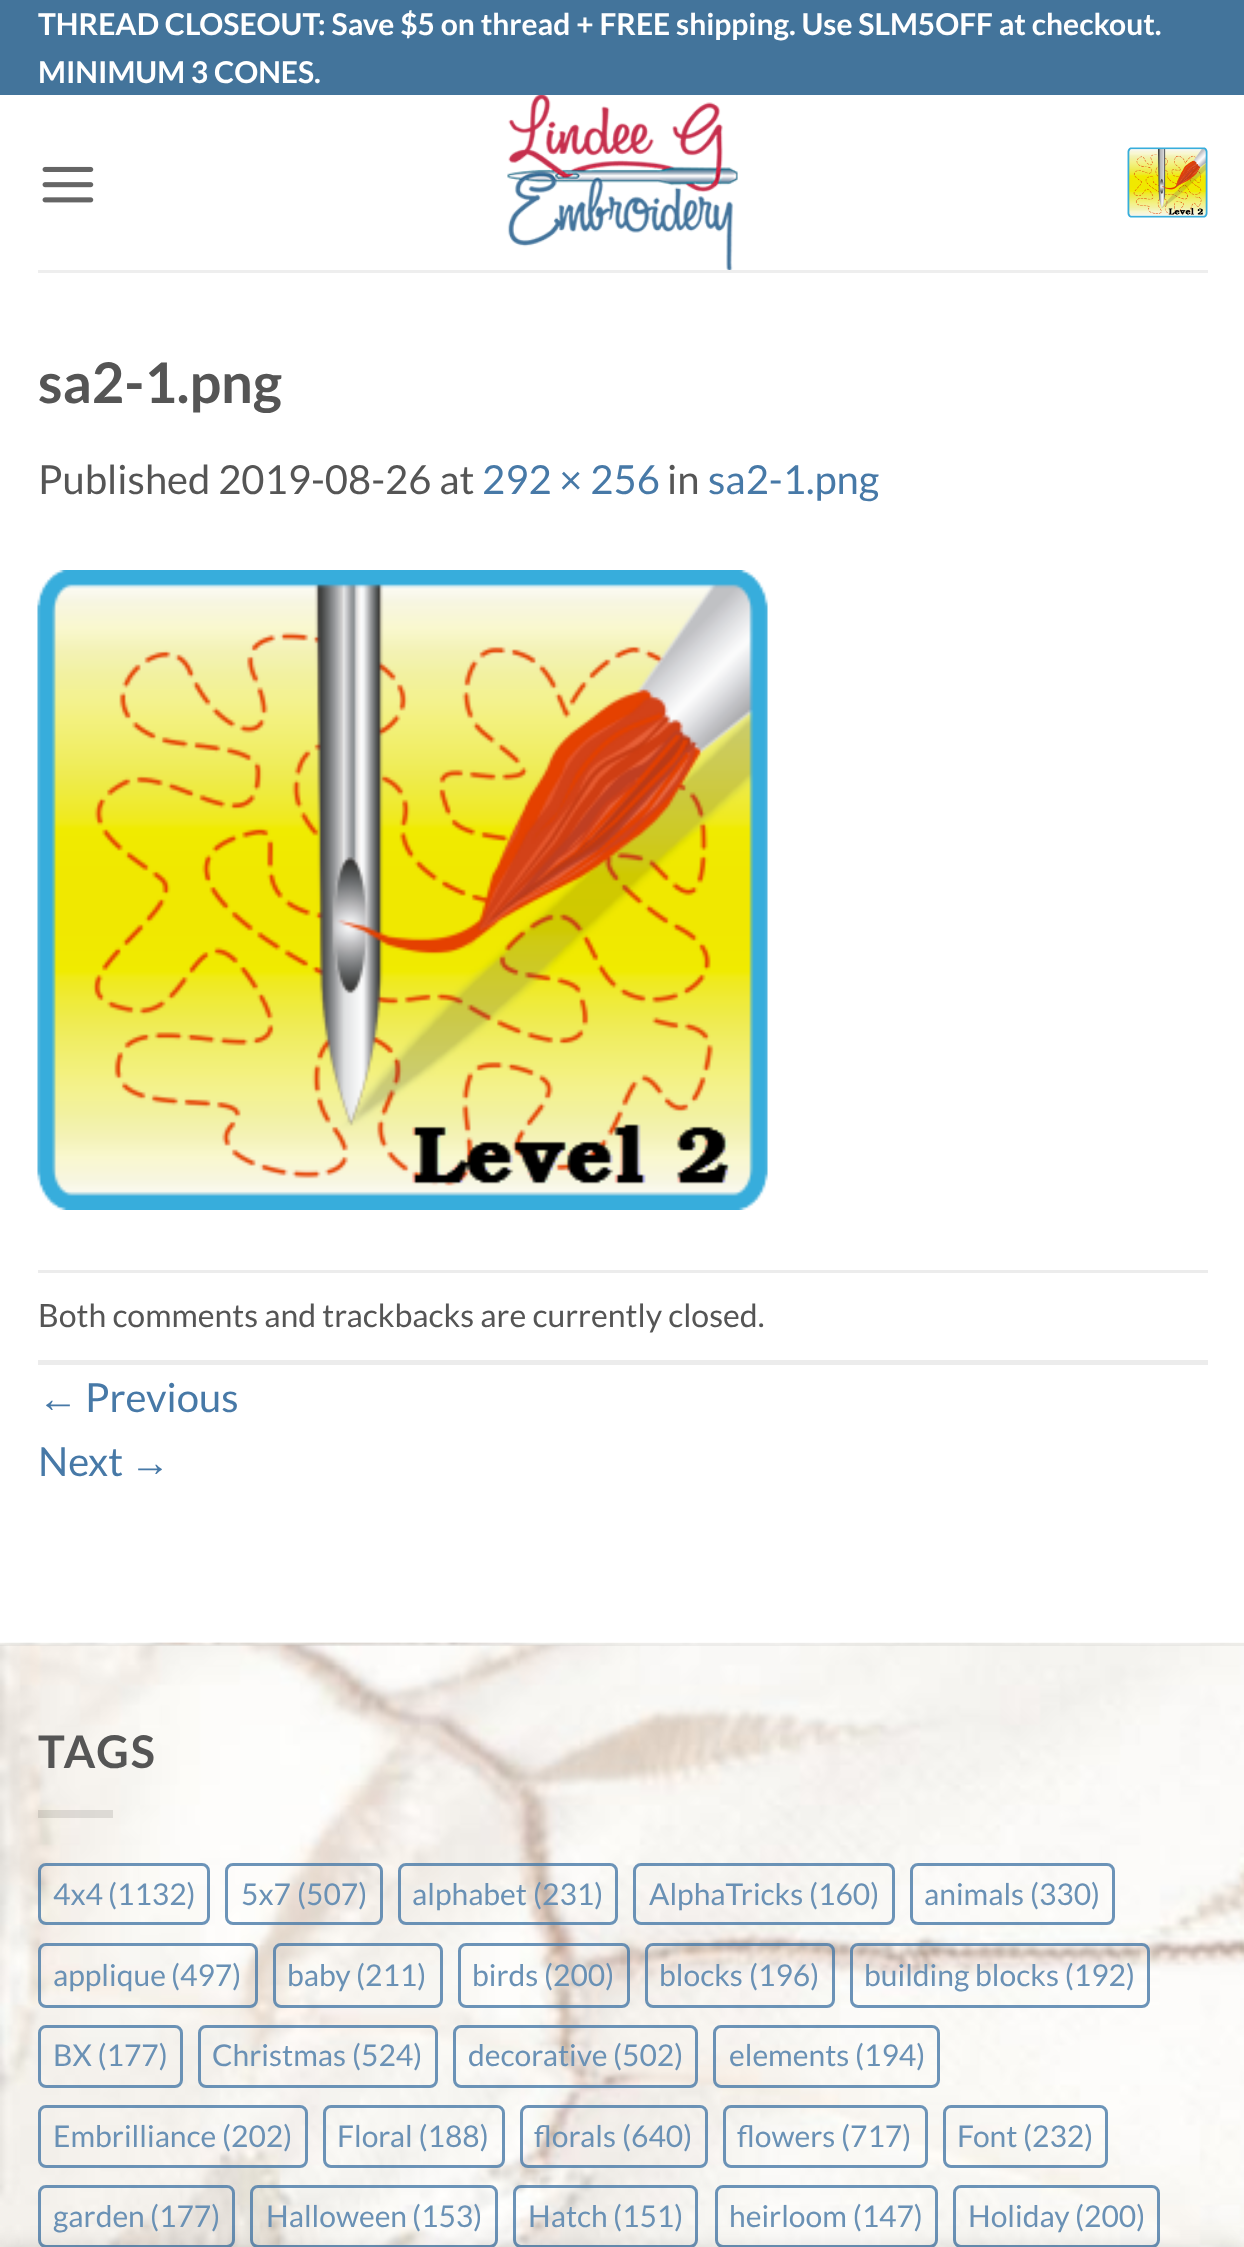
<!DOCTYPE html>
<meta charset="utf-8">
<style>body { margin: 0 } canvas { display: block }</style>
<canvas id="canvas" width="1244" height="2247"></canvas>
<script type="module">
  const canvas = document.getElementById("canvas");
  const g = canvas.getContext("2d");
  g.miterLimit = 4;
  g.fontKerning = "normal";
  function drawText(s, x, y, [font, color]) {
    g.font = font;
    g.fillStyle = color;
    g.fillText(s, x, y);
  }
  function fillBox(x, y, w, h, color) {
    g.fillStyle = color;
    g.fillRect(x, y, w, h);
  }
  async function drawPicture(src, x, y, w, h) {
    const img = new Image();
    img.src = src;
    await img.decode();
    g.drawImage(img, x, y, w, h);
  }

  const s1 = ["bold 30px Lato", "#FFFFFF"];
  const s2 = ["bold 56px Lato", "#555555"];
  const s3 = ["40px Lato", "#555555"];
  const s4 = ["40px Lato", "#4779A7"];
  const s5 = ["32px Lato", "#555555"];
  const s6 = ["40px Liberation Sans", "#4779A7"];
  const s7 = ["bold 45px Lato", "#555555"];
  const s8 = ["30px Lato", "#6A91B5"];

  fillBox(0, 0, 1244, 2247, "#FFFFFF");
  fillBox(0, 0, 1244, 95, "#43749B");
  drawText("THREAD CLOSEOUT: Save $5 on thread + FREE shipping. Use SLM5OFF at checkout.", 38, 35, s1);
  drawText("MINIMUM 3 CONES.", 38, 83, s1);
  await drawPicture("pic1.png", 42, 166, 52, 37);
  await drawPicture("pic2.png", 507, 95, 231, 175);
  await drawPicture("pic3.png", 1127, 147, 81, 71);
  fillBox(38, 270, 1170, 3, "#EEEEEE");
  drawText("sa2-1.png", 38, 403, s2);
  drawText("Published 2019-08-26 at", 38, 494, s3);
  drawText("292 × 256", 482, 494, s4);
  drawText("in", 667, 494, s3);
  drawText("sa2-1.png", 708, 494, s4);
  await drawPicture("pic4.png", 37, 570, 731, 640);
  fillBox(38, 1270, 1170, 3, "#ECECEC");
  fillBox(38, 1360, 1170, 5, "#ECECEC");
  drawText("Both comments and trackbacks are currently closed.", 38, 1327, s5);
  drawText("←", 38, 1412, s6);
  drawText("Previous", 85, 1412, s4);
  drawText("Next", 38, 1476, s4);
  drawText("→", 130, 1476, s6);
  await drawPicture("pic5.png", 0, 1642, 1244, 605);
  fillBox(0, 1643, 1244, 3, "rgba(0, 0, 0, 0.05)");
  g.letterSpacing = "2px";
  drawText("TAGS", 38, 1768, s7);
  fillBox(38, 1810, 75, 8, "rgba(0, 0, 0, 0.1)");
  g.beginPath();
  g.roundRect(39.5, 1864.5, 169, 59, 6.5);
  g.strokeStyle = "rgba(71, 121, 167, 0.8)";
  g.lineWidth = 3;
  g.stroke();
  g.letterSpacing = "0px";
  drawText("4x4", 53, 1905, s8);
  drawText("(1132)", 108, 1905, s8);
  g.beginPath();
  g.roundRect(226.5, 1864.5, 155, 59, 6.5);
  g.stroke();
  drawText("5x7", 241, 1905, s8);
  drawText("(507)", 297, 1905, s8);
  g.beginPath();
  g.roundRect(399.5, 1864.5, 217, 59, 6.5);
  g.stroke();
  drawText("alphabet", 412, 1905, s8);
  drawText("(231)", 533, 1905, s8);
  g.beginPath();
  g.roundRect(634.5, 1864.5, 259, 59, 6.5);
  g.stroke();
  drawText("AlphaTricks", 649, 1905, s8);
  drawText("(160)", 809, 1905, s8);
  g.beginPath();
  g.roundRect(911.5, 1864.5, 202, 59, 6.5);
  g.stroke();
  drawText("animals (330)", 924, 1905, s8);
  g.beginPath();
  g.roundRect(39.5, 1944.5, 217, 62, 6.5);
  g.stroke();
  drawText("applique", 53, 1986, s8);
  drawText("(497)", 171, 1986, s8);
  g.beginPath();
  g.roundRect(274.5, 1944.5, 167, 62, 6.5);
  g.stroke();
  drawText("baby", 287, 1986, s8);
  drawText("(211)", 356, 1986, s8);
  g.beginPath();
  g.roundRect(459.5, 1944.5, 169, 62, 6.5);
  g.stroke();
  drawText("birds", 472, 1986, s8);
  drawText("(200)", 544, 1986, s8);
  g.beginPath();
  g.roundRect(646.5, 1944.5, 187, 62, 6.5);
  g.stroke();
  drawText("blocks", 659, 1986, s8);
  drawText("(196)", 749, 1986, s8);
  g.beginPath();
  g.roundRect(851.5, 1944.5, 297, 62, 6.5);
  g.stroke();
  drawText("building blocks (192)", 864, 1986, s8);
  g.beginPath();
  g.roundRect(39.5, 2026.5, 142, 60, 6.5);
  g.stroke();
  drawText("BX (177)", 53, 2066, s8);
  g.beginPath();
  g.roundRect(199.5, 2026.5, 237, 60, 6.5);
  g.stroke();
  drawText("Christmas", 212, 2066, s8);
  drawText("(524)", 352, 2066, s8);
  g.beginPath();
  g.roundRect(454.5, 2026.5, 242, 60, 6.5);
  g.stroke();
  drawText("decorative", 468, 2066, s8);
  drawText("(502)", 613, 2066, s8);
  g.beginPath();
  g.roundRect(714.5, 2026.5, 224, 60, 6.5);
  g.stroke();
  drawText("elements", 729, 2066, s8);
  drawText("(194)", 855, 2066, s8);
  g.beginPath();
  g.roundRect(39.5, 2106.5, 267, 60, 6.5);
  g.stroke();
  drawText("Embrilliance (202)", 53, 2147, s8);
  g.beginPath();
  g.roundRect(324.5, 2106.5, 179, 60, 6.5);
  g.stroke();
  drawText("Floral (188)", 337, 2147, s8);
  g.beginPath();
  g.roundRect(521.5, 2106.5, 185, 60, 6.5);
  g.stroke();
  drawText("florals", 534, 2147, s8);
  drawText("(640)", 622, 2147, s8);
  g.beginPath();
  g.roundRect(724.5, 2106.5, 202, 60, 6.5);
  g.stroke();
  drawText("flowers", 737, 2147, s8);
  drawText("(717)", 841, 2147, s8);
  g.beginPath();
  g.roundRect(944.5, 2106.5, 162, 60, 6.5);
  g.stroke();
  drawText("Font", 957, 2147, s8);
  drawText("(232)", 1023, 2147, s8);
  g.beginPath();
  g.roundRect(39.5, 2186.5, 194, 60, 6.5);
  g.stroke();
  drawText("garden", 53, 2227, s8);
  drawText("(177)", 150, 2227, s8);
  g.beginPath();
  g.roundRect(251.5, 2186.5, 245, 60, 6.5);
  g.stroke();
  drawText("Halloween", 266, 2227, s8);
  drawText("(153)", 412, 2227, s8);
  g.beginPath();
  g.roundRect(514.5, 2186.5, 182, 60, 6.5);
  g.stroke();
  drawText("Hatch", 528, 2227, s8);
  drawText("(151)", 613, 2227, s8);
  g.beginPath();
  g.roundRect(716.5, 2186.5, 220, 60, 6.5);
  g.stroke();
  drawText("heirloom (147)", 729, 2227, s8);
  g.beginPath();
  g.roundRect(954.5, 2186.5, 204, 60, 6.5);
  g.stroke();
  drawText("Holiday", 968, 2227, s8);
  drawText("(200)", 1075, 2227, s8);
  g.fillStyle = "rgba(0, 0, 0, 0.14)";
  g.filter = "blur(11px)";
  g.beginPath();
  g.rect(0, 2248, 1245, 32);
  g.fill();
  g.filter = "none";
</script>
